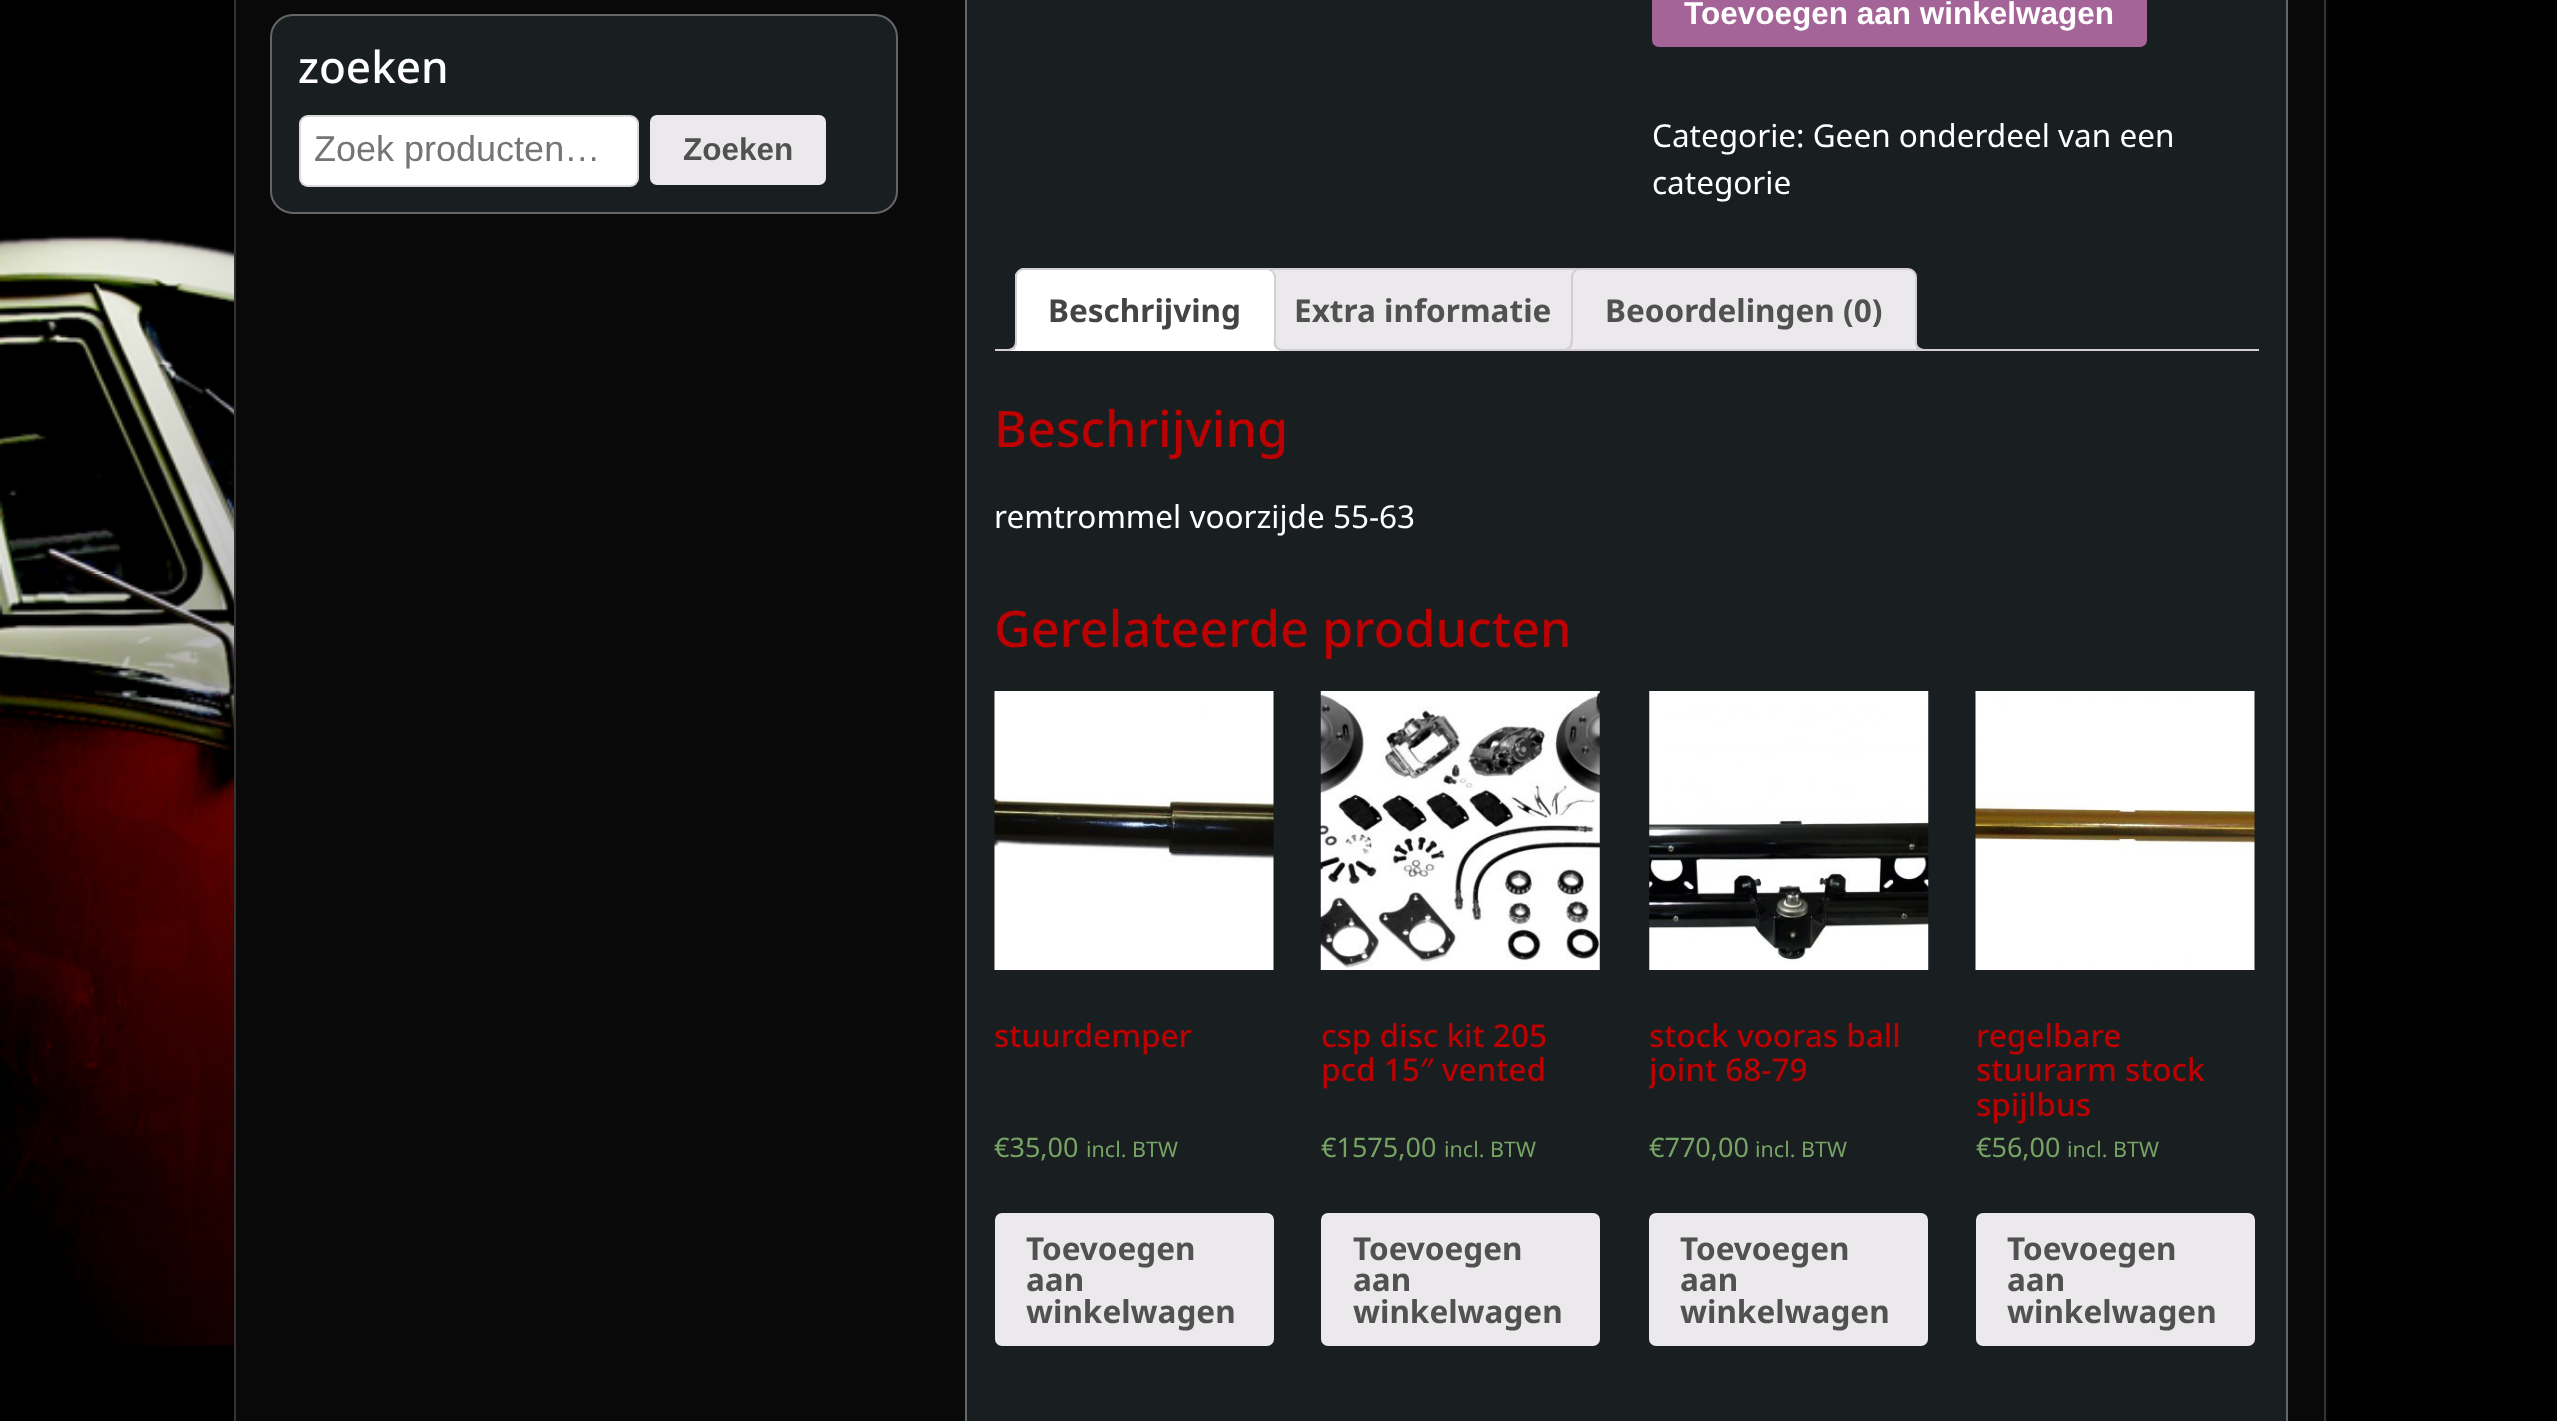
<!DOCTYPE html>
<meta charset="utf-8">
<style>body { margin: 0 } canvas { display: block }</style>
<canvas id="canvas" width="2557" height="1421"></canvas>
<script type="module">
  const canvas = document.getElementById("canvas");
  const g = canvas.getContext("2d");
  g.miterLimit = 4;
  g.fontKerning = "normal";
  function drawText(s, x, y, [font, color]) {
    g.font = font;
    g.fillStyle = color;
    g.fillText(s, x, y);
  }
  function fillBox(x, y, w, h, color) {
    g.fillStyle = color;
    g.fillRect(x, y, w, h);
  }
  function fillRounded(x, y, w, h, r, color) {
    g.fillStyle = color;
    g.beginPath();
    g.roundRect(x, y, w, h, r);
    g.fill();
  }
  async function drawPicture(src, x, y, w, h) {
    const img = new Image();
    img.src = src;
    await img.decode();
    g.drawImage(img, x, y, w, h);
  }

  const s1 = ["500 44px Noto Sans", "#FFFFFF"];
  const s2 = ["36px Liberation Sans", "#757575"];
  const s3 = ["bold 31.5px Liberation Sans", "#515151"];
  const s4 = ["bold 31.5px Liberation Sans", "#FFFFFF"];
  const s5 = ["31.5px Noto Sans", "#FFFFFF"];
  const s6 = ["bold 31.5px Noto Sans", "#444444"];
  const s7 = ["bold 31.5px Noto Sans", "#515151"];
  const s8 = ["500 50.4px Noto Sans", "#BB0101"];
  const s9 = ["500 31.5px Noto Sans", "#BB0101"];
  const s10 = ["27px Noto Sans", "#77A464"];
  const s11 = ["21.5px Noto Sans", "#77A464"];

  fillBox(0, 0, 2557, 1421, "#000000");
  await drawPicture("pic1.png", 0, 148, 234, 1198);
  fillBox(236, 0, 2091, 1421, "#0A0909");
  fillBox(2324, 0, 2, 1421, "#333333");
  fillBox(234, 0, 2, 1421, "#333333");
  g.fillStyle = "#191E21";
  g.beginPath();
  g.roundRect(271, 15, 626, 198, 22);
  g.fill();
  g.strokeStyle = "#666666";
  g.lineWidth = 2;
  g.stroke();
  drawText("zoeken", 298, 83, s1);
  fillRounded(299, 115, 340, 72, 9, "#FFFFFF");
  g.beginPath();
  g.roundRect(300, 116, 338, 70, 8);
  g.strokeStyle = "rgba(0, 0, 0, 0.15)";
  g.stroke();
  drawText("Zoek producten…", 314, 161, s2);
  fillRounded(650, 115, 176, 70, 7, "#EBE9EB");
  drawText("Zoeken", 683, 160, s3);
  g.fillStyle = "#191E21";
  g.beginPath();
  g.rect(966, -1, 1321, 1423);
  g.fill();
  g.strokeStyle = "#666666";
  g.stroke();
  fillRounded(1652, -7, 495, 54, 7, "#A46497");
  drawText("Toevoegen aan winkelwagen", 1684, 24, s4);
  drawText("Categorie: Geen onderdeel van een", 1652, 147, s5);
  drawText("categorie", 1652, 194, s5);
  g.fillStyle = "#EBE9EB";
  g.beginPath();
  g.roundRect(1261, 269, 324, 81, [8, 8, 0, 0]);
  g.fill();
  g.strokeStyle = "#D3CED2";
  g.stroke();
  g.beginPath();
  g.roundRect(1572, 269, 344, 81, [8, 8, 0, 0]);
  g.fill();
  g.stroke();
  g.save();
  g.beginPath();
  g.rect(995, 268, 1264, 83);
  g.clip();
  g.beginPath();
  g.moveTo(1566, 350.5);
  g.lineTo(1566, 356);
  g.bezierCurveTo(1575, 356, 1577, 352, 1577, 344);
  g.lineTo(1572.5, 344);
  g.bezierCurveTo(1572, 347.5, 1569, 350, 1566, 350.5);
  g.closePath();
  g.fill();
  g.restore();
  g.fillStyle = "#D3CED2";
  g.beginPath();
  g.moveTo(1561.5, 340);
  g.lineTo(1573, 340);
  g.bezierCurveTo(1573, 348, 1569.5, 351, 1561.5, 351);
  g.closePath();
  g.moveTo(1561.5, 340);
  g.lineTo(1570.5, 340);
  g.bezierCurveTo(1570.5, 346.5, 1568.5, 349, 1561.5, 349);
  g.closePath();
  g.fill("evenodd");
  g.save();
  g.beginPath();
  g.rect(995, 268, 1264, 83);
  g.clip();
  g.fillStyle = "#EBE9EB";
  g.beginPath();
  g.moveTo(1910, 344);
  g.bezierCurveTo(1910, 353, 1913, 356, 1922, 356);
  g.lineTo(1922, 351);
  g.bezierCurveTo(1918.5, 350, 1916, 347.5, 1915, 344);
  g.closePath();
  g.fill();
  g.restore();
  g.beginPath();
  g.moveTo(1915, 340);
  g.lineTo(1926, 340);
  g.lineTo(1926, 351);
  g.lineTo(1924, 351);
  g.bezierCurveTo(1919, 351, 1915, 347, 1915, 342);
  g.closePath();
  g.moveTo(1917, 340);
  g.lineTo(1926, 340);
  g.lineTo(1926, 349);
  g.bezierCurveTo(1921.5, 349, 1917, 347.5, 1917, 342);
  g.closePath();
  g.fill("evenodd");
  fillBox(995, 349, 1264, 2, "#D3CED2");
  g.fillStyle = "#FFFFFF";
  g.beginPath();
  g.roundRect(1015, 268, 261, 83, [9, 9, 0, 0]);
  g.fill();
  g.fillStyle = "#D3CED2";
  g.beginPath();
  g.moveTo(1024, 268);
  g.bezierCurveTo(1022, 268, 1019, 269, 1018, 271);
  g.lineTo(1019, 272);
  g.bezierCurveTo(1020, 271, 1022, 270, 1024, 270);
  g.lineTo(1268, 270);
  g.lineTo(1272, 272);
  g.lineTo(1273, 270);
  g.bezierCurveTo(1272, 269, 1269, 268, 1267, 268);
  g.closePath();
  g.fill();
  g.beginPath();
  g.moveTo(1273, 270);
  g.bezierCurveTo(1274, 272, 1275, 273, 1276, 275);
  g.lineTo(1276, 351);
  g.lineTo(1274, 349);
  g.lineTo(1274, 276);
  g.lineTo(1272, 272);
  g.closePath();
  g.fill();
  g.fillStyle = "#FFFFFF";
  g.beginPath();
  g.moveTo(1276, 351);
  g.lineTo(1274, 349);
  g.lineTo(1017, 349);
  g.lineTo(1015, 351);
  g.closePath();
  g.fill();
  g.fillStyle = "#D3CED2";
  g.beginPath();
  g.moveTo(1018, 271);
  g.bezierCurveTo(1016, 272, 1015, 274, 1015, 277);
  g.lineTo(1015, 351);
  g.lineTo(1017, 349);
  g.lineTo(1017, 277);
  g.bezierCurveTo(1017, 275, 1018, 273, 1019, 272);
  g.closePath();
  g.fill();
  drawText("Beschrijving", 1048, 322, s6);
  g.save();
  g.beginPath();
  g.rect(995, 268, 1264, 83);
  g.clip();
  g.fillStyle = "#FFFFFF";
  g.beginPath();
  g.moveTo(1010, 351);
  g.lineTo(1010, 356);
  g.bezierCurveTo(1019, 356, 1022, 353, 1022, 344);
  g.lineTo(1017, 344);
  g.bezierCurveTo(1016, 347.5, 1013.5, 350, 1010, 351);
  g.closePath();
  g.fill();
  g.restore();
  g.fillStyle = "#D3CED2";
  g.beginPath();
  g.moveTo(1006, 340);
  g.lineTo(1017, 340);
  g.bezierCurveTo(1017, 348, 1014, 351, 1006, 351);
  g.closePath();
  g.moveTo(1006, 340);
  g.lineTo(1015, 340);
  g.bezierCurveTo(1015, 346.5, 1012.5, 349, 1006, 349);
  g.closePath();
  g.fill("evenodd");
  g.save();
  g.beginPath();
  g.rect(995, 268, 1264, 83);
  g.clip();
  g.fillStyle = "#FFFFFF";
  g.beginPath();
  g.moveTo(1269, 344);
  g.bezierCurveTo(1269, 352, 1271, 356, 1280, 356);
  g.lineTo(1280, 350.5);
  g.bezierCurveTo(1277, 349.5, 1274.5, 347, 1273.5, 344);
  g.closePath();
  g.fill();
  g.restore();
  g.beginPath();
  g.moveTo(1273.5, 340);
  g.lineTo(1285, 340);
  g.lineTo(1285, 351);
  g.lineTo(1282.5, 351);
  g.bezierCurveTo(1277.5, 351, 1273.5, 347, 1273.5, 342);
  g.closePath();
  g.moveTo(1276, 340);
  g.lineTo(1285, 340);
  g.lineTo(1285, 349);
  g.bezierCurveTo(1280, 349, 1276, 347.5, 1276, 342);
  g.closePath();
  g.fill("evenodd");
  drawText("Extra informatie", 1294, 322, s7);
  drawText("Beoordelingen (0)", 1605, 322, s7);
  drawText("Beschrijving", 994, 447, s8);
  drawText("remtrommel voorzijde 55-63", 994, 528, s5);
  drawText("Gerelateerde producten", 994, 647, s8);
  await drawPicture("pic2.png", 994, 691, 280, 279);
  drawText("stuurdemper", 994, 1047, s9);
  drawText("€35,00", 994, 1157, s10);
  drawText("incl. BTW", 1086, 1157, s11);
  fillRounded(995, 1213, 279, 133, 7, "#EBE9EB");
  drawText("Toevoegen", 1026, 1260, s7);
  drawText("aan", 1026, 1291, s7);
  drawText("winkelwagen", 1026, 1323, s7);
  await drawPicture("pic3.png", 1320, 691, 280, 279);
  drawText("csp disc kit 205", 1321, 1047, s9);
  drawText("pcd 15″ vented", 1321, 1081, s9);
  drawText("€1575,00", 1321, 1157, s10);
  drawText("incl. BTW", 1444, 1157, s11);
  fillRounded(1321, 1213, 279, 133, 7, "#EBE9EB");
  drawText("Toevoegen", 1353, 1260, s7);
  drawText("aan", 1353, 1291, s7);
  drawText("winkelwagen", 1353, 1323, s7);
  await drawPicture("pic4.png", 1649, 691, 280, 279);
  drawText("stock vooras ball", 1649, 1047, s9);
  g.save();
  g.beginPath();
  g.rect(1649, 1001, 279, 126);
  g.clip();
  drawText("joint 68-79", 1649, 1081, s9);
  g.restore();
  drawText("€770,00", 1649, 1157, s10);
  drawText("incl. BTW", 1755, 1157, s11);
  fillRounded(1649, 1213, 279, 133, 7, "#EBE9EB");
  drawText("Toevoegen", 1680, 1260, s7);
  drawText("aan", 1680, 1291, s7);
  drawText("winkelwagen", 1680, 1323, s7);
  await drawPicture("pic5.png", 1975, 691, 280, 279);
  drawText("regelbare", 1976, 1047, s9);
  drawText("stuurarm stock", 1976, 1081, s9);
  drawText("spijlbus", 1976, 1116, s9);
  drawText("€56,00", 1976, 1157, s10);
  drawText("incl. BTW", 2067, 1157, s11);
  fillRounded(1976, 1213, 279, 133, 7, "#EBE9EB");
  drawText("Toevoegen", 2007, 1260, s7);
  drawText("aan", 2007, 1291, s7);
  drawText("winkelwagen", 2007, 1323, s7);
</script>
